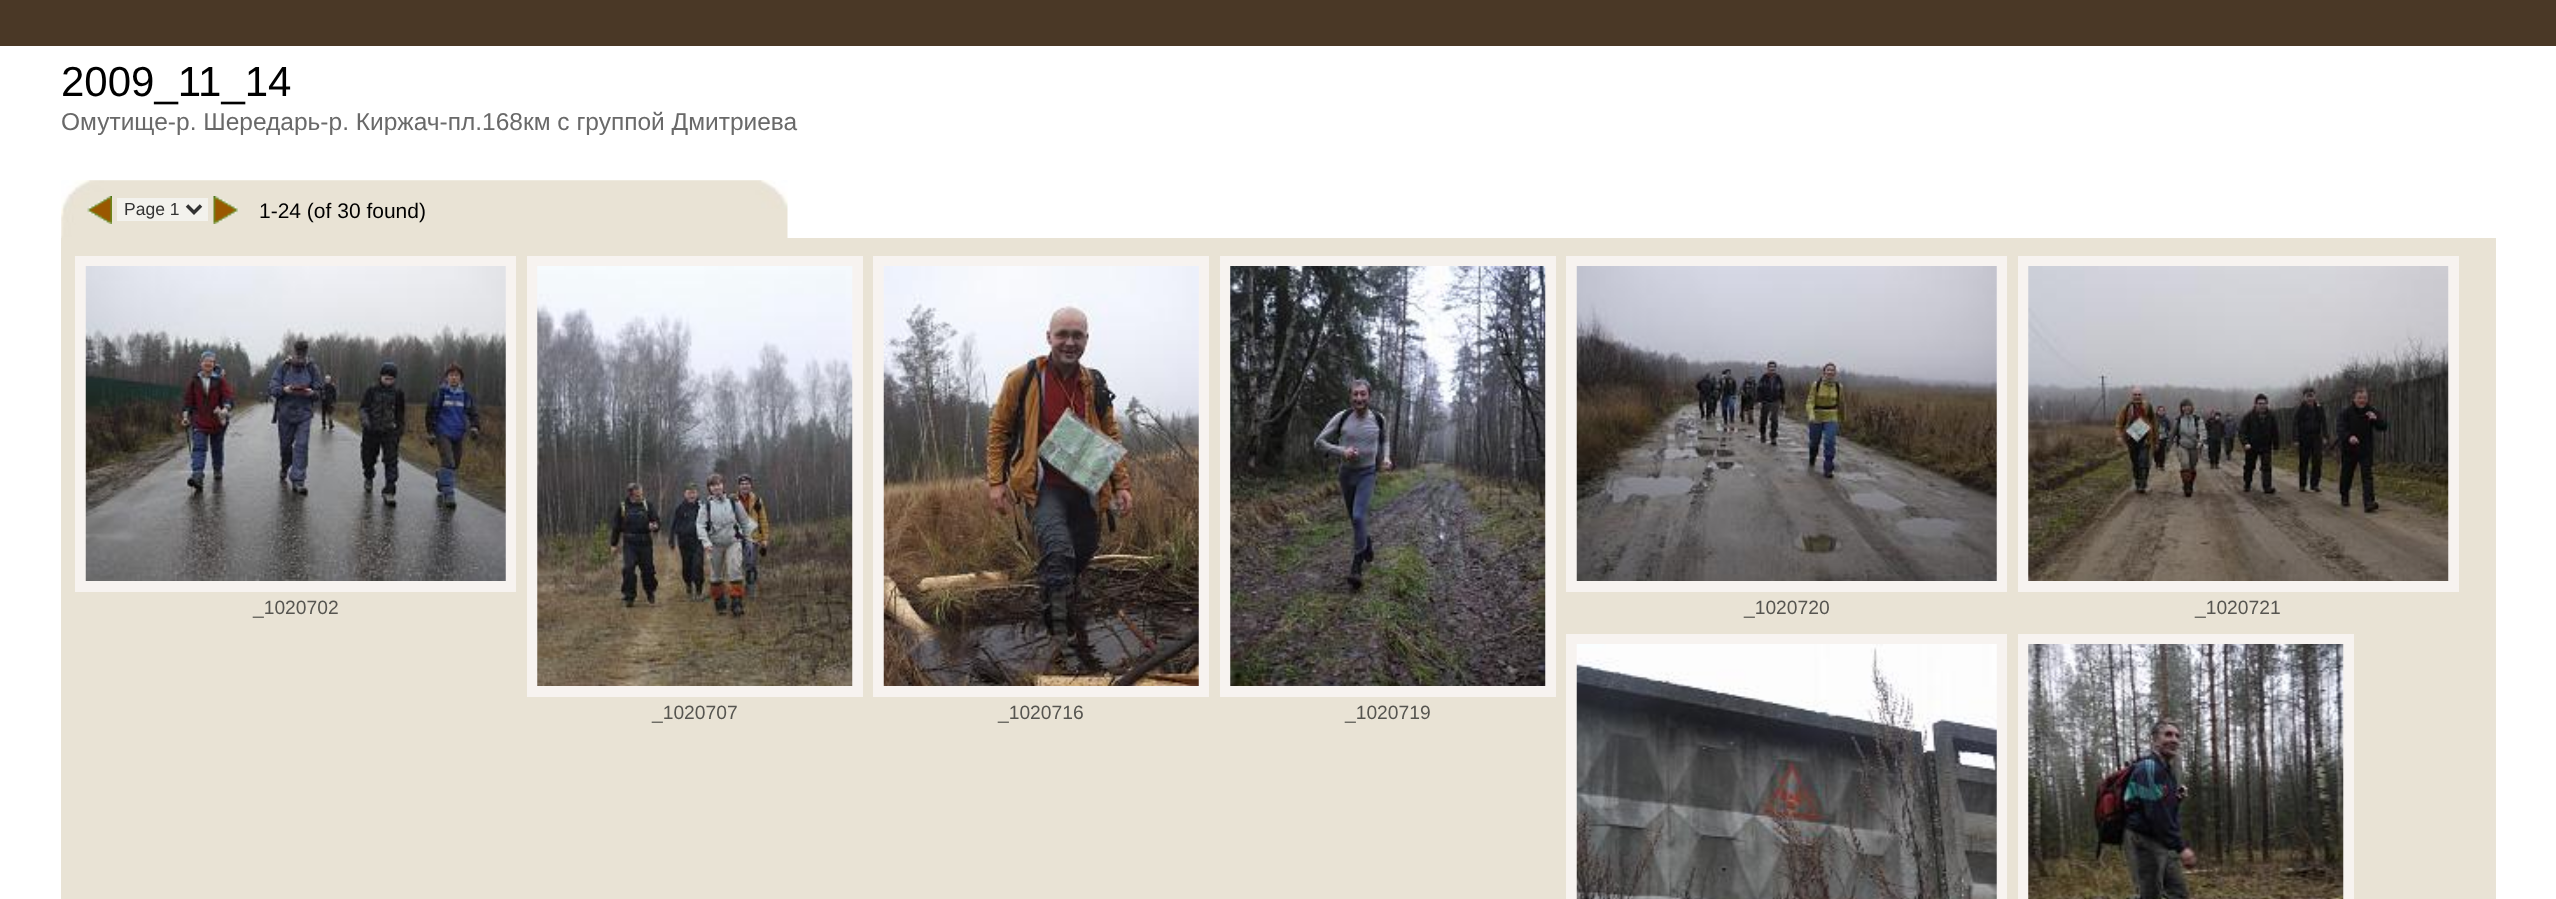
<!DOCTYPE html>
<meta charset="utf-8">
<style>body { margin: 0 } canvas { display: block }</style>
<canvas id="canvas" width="2556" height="899"></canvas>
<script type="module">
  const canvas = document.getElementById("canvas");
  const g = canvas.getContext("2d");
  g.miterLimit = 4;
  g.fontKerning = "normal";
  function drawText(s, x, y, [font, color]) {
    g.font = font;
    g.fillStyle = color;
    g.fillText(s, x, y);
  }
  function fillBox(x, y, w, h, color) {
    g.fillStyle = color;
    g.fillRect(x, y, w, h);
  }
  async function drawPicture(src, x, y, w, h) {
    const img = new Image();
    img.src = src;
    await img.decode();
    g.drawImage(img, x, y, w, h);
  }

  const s1 = ["42px Liberation Sans", "#000000"];
  const s2 = ["24.5px Liberation Sans", "#696969"];
  const s3 = ["17.5px Liberation Sans", "#333333"];
  const s4 = ["21px Liberation Sans", "#000000"];
  const s5 = ["19.25px Liberation Sans", "#565550"];

  fillBox(0, 0, 2556, 899, "#FFFFFF");
  fillBox(0, 0, 2556, 46, "#4A3826");
  drawText("2009_11_14", 61, 96, s1);
  drawText("Омутище-р. Шередарь-р. Киржач-пл.168км с группой Дмитриева", 61, 130, s2);
  await drawPicture("pic1.png", 61, 180, 727, 58);
  await drawPicture("pic2.png", 87, 196, 25, 28);
  fillBox(117, 198, 91, 23, "#F3F2ED");
  g.beginPath();
  g.moveTo(187, 205.5);
  g.lineTo(194, 212.5);
  g.lineTo(201, 205.5);
  g.strokeStyle = "#333333";
  g.lineWidth = 3.5;
  g.stroke();
  drawText("Page 1", 124, 215, s3);
  await drawPicture("pic3.png", 213, 196, 25, 28);
  drawText("1-24 (of 30 found)", 259, 218, s4);
  fillBox(61, 238, 2435, 661, "#E9E3D5");
  g.strokeStyle = "#F7F3F0";
  g.lineWidth = 11;
  g.strokeRect(80.5, 261.5, 430, 325);
  await drawPicture("pic4.png", 85, 266, 421, 315);
  drawText("_1020702", 253, 614, s5);
  g.strokeRect(1571.5, 261.5, 430, 325);
  await drawPicture("pic5.png", 1576, 266, 421, 315);
  drawText("_1020720", 1744, 614, s5);
  g.strokeRect(2023.5, 261.5, 430, 325);
  await drawPicture("pic6.png", 2028, 266, 421, 315);
  drawText("_1020721", 2195, 614, s5);
  g.strokeRect(532.5, 261.5, 325, 430);
  await drawPicture("pic7.png", 537, 266, 316, 420);
  drawText("_1020707", 652, 719, s5);
  g.strokeRect(878.5, 261.5, 325, 430);
  await drawPicture("pic8.png", 883, 266, 316, 420);
  drawText("_1020716", 998, 719, s5);
  g.strokeRect(1225.5, 261.5, 325, 430);
  await drawPicture("pic9.png", 1230, 266, 316, 420);
  drawText("_1020719", 1345, 719, s5);
  g.strokeRect(1571.5, 639.5, 430, 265);
  await drawPicture("pic10.png", 1576, 644, 421, 255);
  g.strokeRect(2023.5, 639.5, 325, 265);
  await drawPicture("pic11.png", 2028, 644, 316, 255);
</script>
